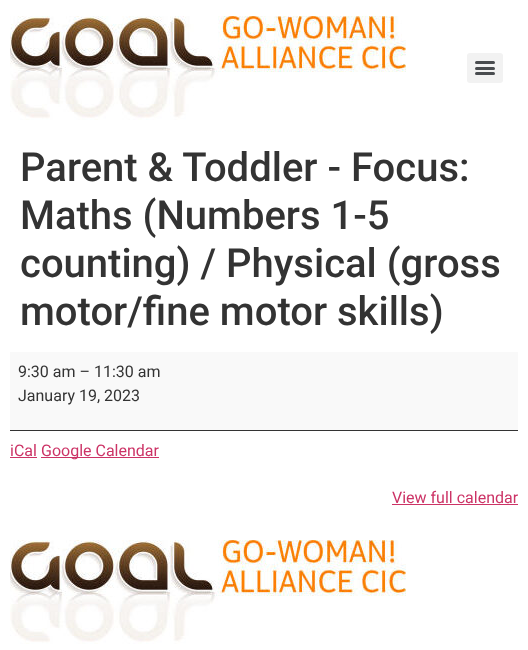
<!DOCTYPE html>
<meta charset="utf-8">
<style>body { margin: 0 } canvas { display: block }</style>
<canvas id="canvas" width="528" height="650"></canvas>
<script type="module">
  const canvas = document.getElementById("canvas");
  const g = canvas.getContext("2d");
  g.miterLimit = 4;
  g.fontKerning = "normal";
  function drawText(s, x, y, [font, color]) {
    g.font = font;
    g.fillStyle = color;
    g.fillText(s, x, y);
  }
  function fillBox(x, y, w, h, color) {
    g.fillStyle = color;
    g.fillRect(x, y, w, h);
  }
  function fillRounded(x, y, w, h, r, color) {
    g.fillStyle = color;
    g.beginPath();
    g.roundRect(x, y, w, h, r);
    g.fill();
  }
  async function drawPicture(src, x, y, w, h) {
    const img = new Image();
    img.src = src;
    await img.decode();
    g.drawImage(img, x, y, w, h);
  }

  const s1 = ["500 40px Roboto", "#333333"];
  const s2 = ["16px Roboto", "#333333"];
  const s3 = ["16px Roboto", "#CC3366"];

  fillBox(0, 0, 528, 650, "#FFFFFF");
  await drawPicture("pic1.png", 10, 16, 396, 104);
  fillRounded(467, 53, 36, 30, 3, "#F2F2F2");
  fillRounded(475, 67, 20, 3, 1.5, "#494C4F");
  fillRounded(475, 61, 20, 3, 1.5, "#494C4F");
  fillRounded(475, 72, 20, 3, 1.5, "#494C4F");
  drawText("Parent & Toddler - Focus:", 20, 181, s1);
  drawText("Maths (Numbers 1-5", 20, 229, s1);
  drawText("counting) / Physical (gross", 20, 277, s1);
  drawText("motor/fine motor skills)", 20, 325, s1);
  fillBox(10, 352, 508, 78, "#F9F9F9");
  fillBox(10, 430, 508, 1, "#333333");
  drawText("9:30 am – 11:30 am", 18, 377, s2);
  drawText("January 19, 2023", 18, 401, s2);
  drawText("iCal", 10, 456, s3);
  fillBox(10, 457, 27, 1, "#CC3366");
  fillBox(41, 457, 118, 1, "#CC3366");
  drawText("Google Calendar", 41, 456, s3);
  drawText("View full calendar", 392, 503, s3);
  fillBox(392, 504, 126, 1, "#CC3366");
  await drawPicture("pic1.png", 10, 540, 396, 104);
</script>
